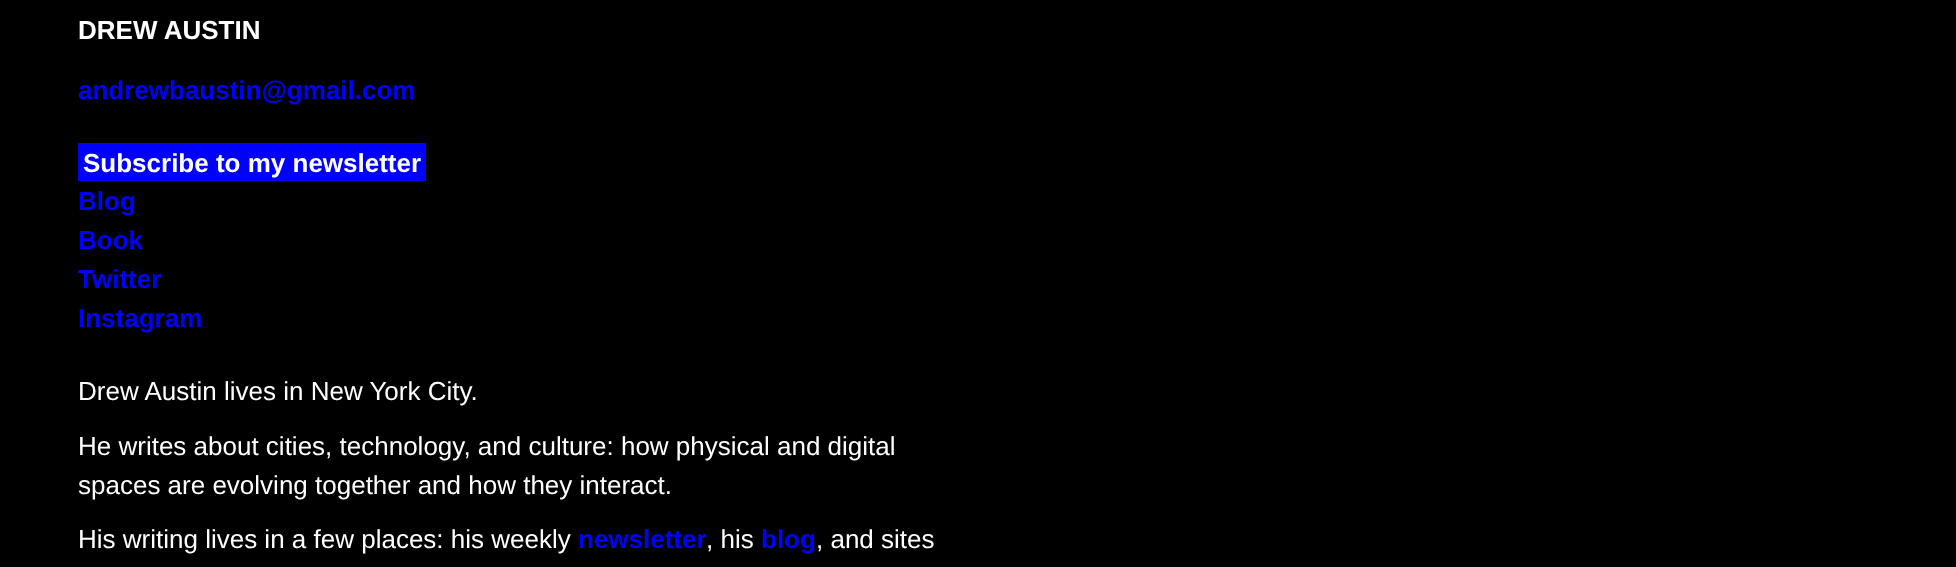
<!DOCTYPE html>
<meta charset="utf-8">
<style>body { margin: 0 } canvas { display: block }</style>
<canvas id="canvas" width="1956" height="567"></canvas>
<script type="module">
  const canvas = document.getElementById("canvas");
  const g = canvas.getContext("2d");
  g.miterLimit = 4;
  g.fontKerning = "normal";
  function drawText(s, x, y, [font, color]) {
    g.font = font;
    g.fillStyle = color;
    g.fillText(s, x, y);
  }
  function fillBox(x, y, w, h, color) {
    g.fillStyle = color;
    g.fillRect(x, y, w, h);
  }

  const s1 = ["bold 26px Liberation Sans", "#FFFFFF"];
  const s2 = ["bold 26px Liberation Sans", "#0000FF"];
  const s3 = ["26px Liberation Sans", "#FFFFFF"];

  fillBox(0, 0, 1956, 567, "#000000");
  drawText("DREW AUSTIN", 78, 39, s1);
  drawText("andrewbaustin@gmail.com", 78, 99, s2);
  fillBox(78, 143, 348, 38, "#0000FF");
  drawText("Subscribe to my newsletter", 83, 172, s1);
  drawText("Blog", 78, 210, s2);
  drawText("Book", 78, 249, s2);
  drawText("Twitter", 78, 288, s2);
  drawText("Instagram", 78, 327, s2);
  drawText("Drew Austin lives in New York City.", 78, 400, s3);
  drawText("He writes about cities, technology, and culture: how physical and digital", 78, 455, s3);
  drawText("spaces are evolving together and how they interact.", 78, 494, s3);
  drawText("His writing lives in a few places: his weekly", 78, 548, s3);
  drawText("newsletter", 578, 548, s2);
  drawText(", his", 706, 548, s3);
  drawText("blog", 761, 548, s2);
  drawText(", and sites", 816, 548, s3);
</script>
